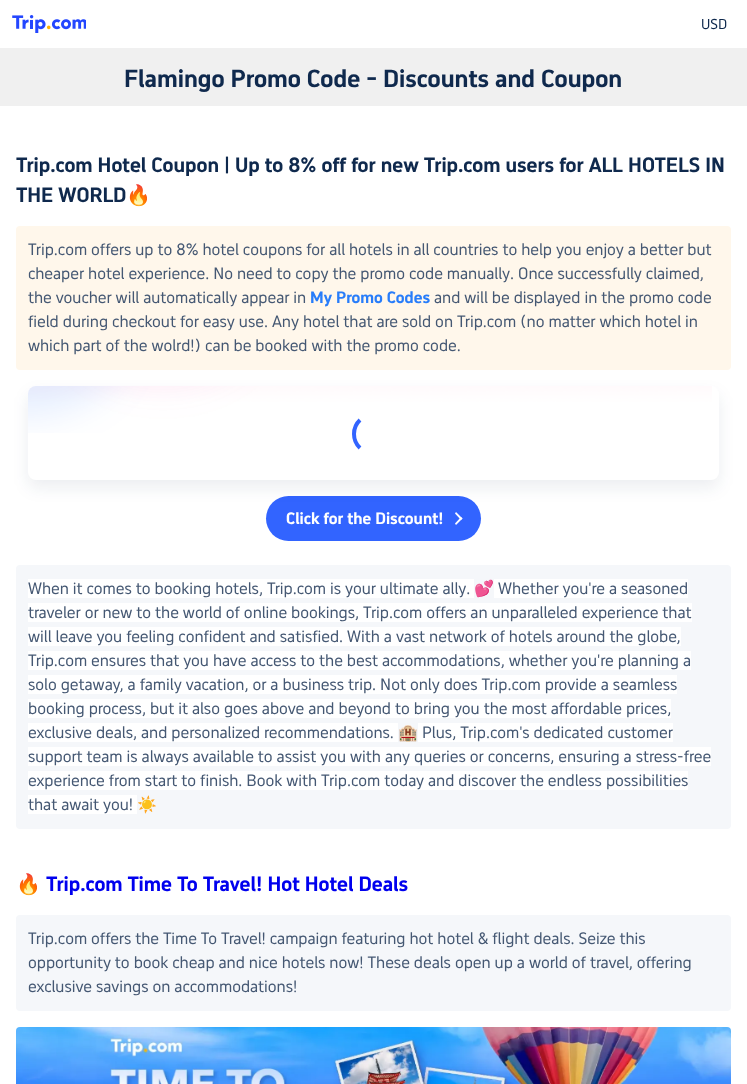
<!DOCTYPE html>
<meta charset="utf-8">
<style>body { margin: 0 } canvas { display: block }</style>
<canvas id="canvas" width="747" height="1084"></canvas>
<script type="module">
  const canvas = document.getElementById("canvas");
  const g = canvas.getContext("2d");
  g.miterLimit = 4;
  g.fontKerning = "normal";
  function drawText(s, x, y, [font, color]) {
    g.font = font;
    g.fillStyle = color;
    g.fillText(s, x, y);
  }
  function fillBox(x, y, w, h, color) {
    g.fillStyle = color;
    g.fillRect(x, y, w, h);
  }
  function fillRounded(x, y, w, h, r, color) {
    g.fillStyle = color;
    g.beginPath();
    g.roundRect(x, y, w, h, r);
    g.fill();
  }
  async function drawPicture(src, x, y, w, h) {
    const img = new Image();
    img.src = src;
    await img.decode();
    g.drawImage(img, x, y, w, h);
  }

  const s1 = ["14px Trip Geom", "#0F294D"];
  const s2 = ["bold 24px Trip Geom", "#0F294D"];
  const s3 = ["bold 20px Trip Geom", "#0F294D"];
  const s4 = ["bold 20px Noto Color Emoji", "#0F294D"];
  const s5 = ["16px Trip Geom", "#455873"];
  const s6 = ["bold 16px Trip Geom", "#287DFA"];
  const s7 = ["bold 16px Trip Geom", "#FFFFFF"];
  const s8 = ["16px Noto Color Emoji", "#455873"];
  const s9 = ["bold 20px Noto Color Emoji", "#0000EE"];
  const s10 = ["bold 20px Trip Geom", "#0000EE"];

  fillBox(0, 0, 747, 1084, "#F0F0F0");
  fillBox(0, 0, 747, 48, "#FFFFFF");
  await drawPicture("pic1.png", 12, 15, 74, 18);
  drawText("USD", 701, 29, s1);
  drawText("Flamingo Promo Code - Discounts and Coupon", 124, 87, s2);
  fillBox(0, 106, 747, 978, "#FFFFFF");
  drawText("Trip.com Hotel Coupon | Up to 8% off for new Trip.com users for ALL HOTELS IN", 16, 172, s3);
  drawText("THE WORLD", 16, 202, s3);
  drawText("🔥", 126, 202, s4);
  fillRounded(16, 226, 715, 144, 4, "#FFF7EB");
  drawText("Trip.com offers up to 8% hotel coupons for all hotels in all countries to help you enjoy a better but", 28, 255, s5);
  drawText("cheaper hotel experience. No need to copy the promo code manually. Once successfully claimed,", 28, 279, s5);
  drawText("the voucher will automatically appear in", 28, 303, s5);
  drawText("My Promo Codes", 310, 303, s6);
  drawText("and will be displayed in the promo code", 434, 303, s5);
  drawText("field during checkout for easy use. Any hotel that are sold on Trip.com (no matter which hotel in", 28, 327, s5);
  drawText("which part of the wolrd!) can be booked with the promo code.", 28, 351, s5);
  fillRounded(266, 496, 215, 45, 22.5, "#3264FF");
  g.fillStyle = "rgba(15, 41, 77, 0.08)";
  g.filter = "blur(8px)";
  g.beginPath();
  g.roundRect(28, 394, 691, 94, 8);
  g.fill();
  g.filter = "none";
  fillRounded(28, 386, 691, 94, 8, "#FFFFFF");
  await drawPicture("pic2.png", 28, 386, 684, 47);
  g.beginPath();
  g.moveTo(360, 448);
  g.bezierCurveTo(352, 440.5, 352, 427.5, 360, 420);
  g.strokeStyle = "#3264FF";
  g.lineWidth = 4;
  g.stroke();
  drawText("Click for the Discount!", 286, 524, s7);
  g.beginPath();
  g.moveTo(461, 520);
  g.lineTo(455, 513.5);
  g.lineTo(456, 512);
  g.lineTo(462.5, 518.5);
  g.closePath();
  g.fill();
  g.beginPath();
  g.moveTo(456, 525);
  g.lineTo(455, 523.5);
  g.lineTo(461, 517);
  g.lineTo(462.5, 518.5);
  g.closePath();
  g.fill();
  fillRounded(16, 565, 715, 264, 4, "#F5F7FA");
  fillBox(28, 579, 446, 19, "#FFFFFF");
  drawText("When it comes to booking hotels, Trip.com is your ultimate ally.", 28, 594, s5);
  drawText("💕", 474, 594, s8);
  fillBox(494, 579, 194, 19, "#FFFFFF");
  drawText("Whether you're a seasoned", 498, 594, s5);
  fillBox(28, 603, 664, 19, "#FFFFFF");
  drawText("traveler or new to the world of online bookings, Trip.com offers an unparalleled experience that", 28, 618, s5);
  fillBox(28, 627, 653, 19, "#FFFFFF");
  drawText("will leave you feeling confident and satisfied. With a vast network of hotels around the globe,", 28, 642, s5);
  fillBox(28, 651, 663, 19, "#FFFFFF");
  drawText("Trip.com ensures that you have access to the best accommodations, whether you're planning a", 28, 666, s5);
  fillBox(28, 675, 649, 19, "#FFFFFF");
  drawText("solo getaway, a family vacation, or a business trip. Not only does Trip.com provide a seamless", 28, 690, s5);
  fillBox(28, 699, 643, 19, "#FFFFFF");
  drawText("booking process, but it also goes above and beyond to bring you the most affordable prices,", 28, 714, s5);
  fillBox(28, 723, 370, 19, "#FFFFFF");
  drawText("exclusive deals, and personalized recommendations.", 28, 738, s5);
  drawText("🏨", 398, 738, s8);
  fillBox(418, 723, 255, 19, "#FFFFFF");
  drawText("Plus, Trip.com's dedicated customer", 422, 738, s5);
  fillBox(28, 747, 683, 19, "#FFFFFF");
  drawText("support team is always available to assist you with any queries or concerns, ensuring a stress-free", 28, 762, s5);
  fillBox(28, 771, 660, 19, "#FFFFFF");
  drawText("experience from start to finish. Book with Trip.com today and discover the endless possibilities", 28, 786, s5);
  fillBox(28, 795, 109, 19, "#FFFFFF");
  drawText("that await you!", 28, 810, s5);
  drawText("☀️", 137, 810, s8);
  drawText("🔥", 16, 891, s9);
  drawText("Trip.com Time To Travel! Hot Hotel Deals", 46, 891, s10);
  fillRounded(16, 915, 715, 96, 4, "#F5F7FA");
  drawText("Trip.com offers the Time To Travel! campaign featuring hot hotel & flight deals. Seize this", 28, 944, s5);
  drawText("opportunity to book cheap and nice hotels now! These deals open up a world of travel, offering", 28, 968, s5);
  drawText("exclusive savings on accommodations!", 28, 992, s5);
  await drawPicture("pic3.png", 16, 1027, 715, 57);
</script>
